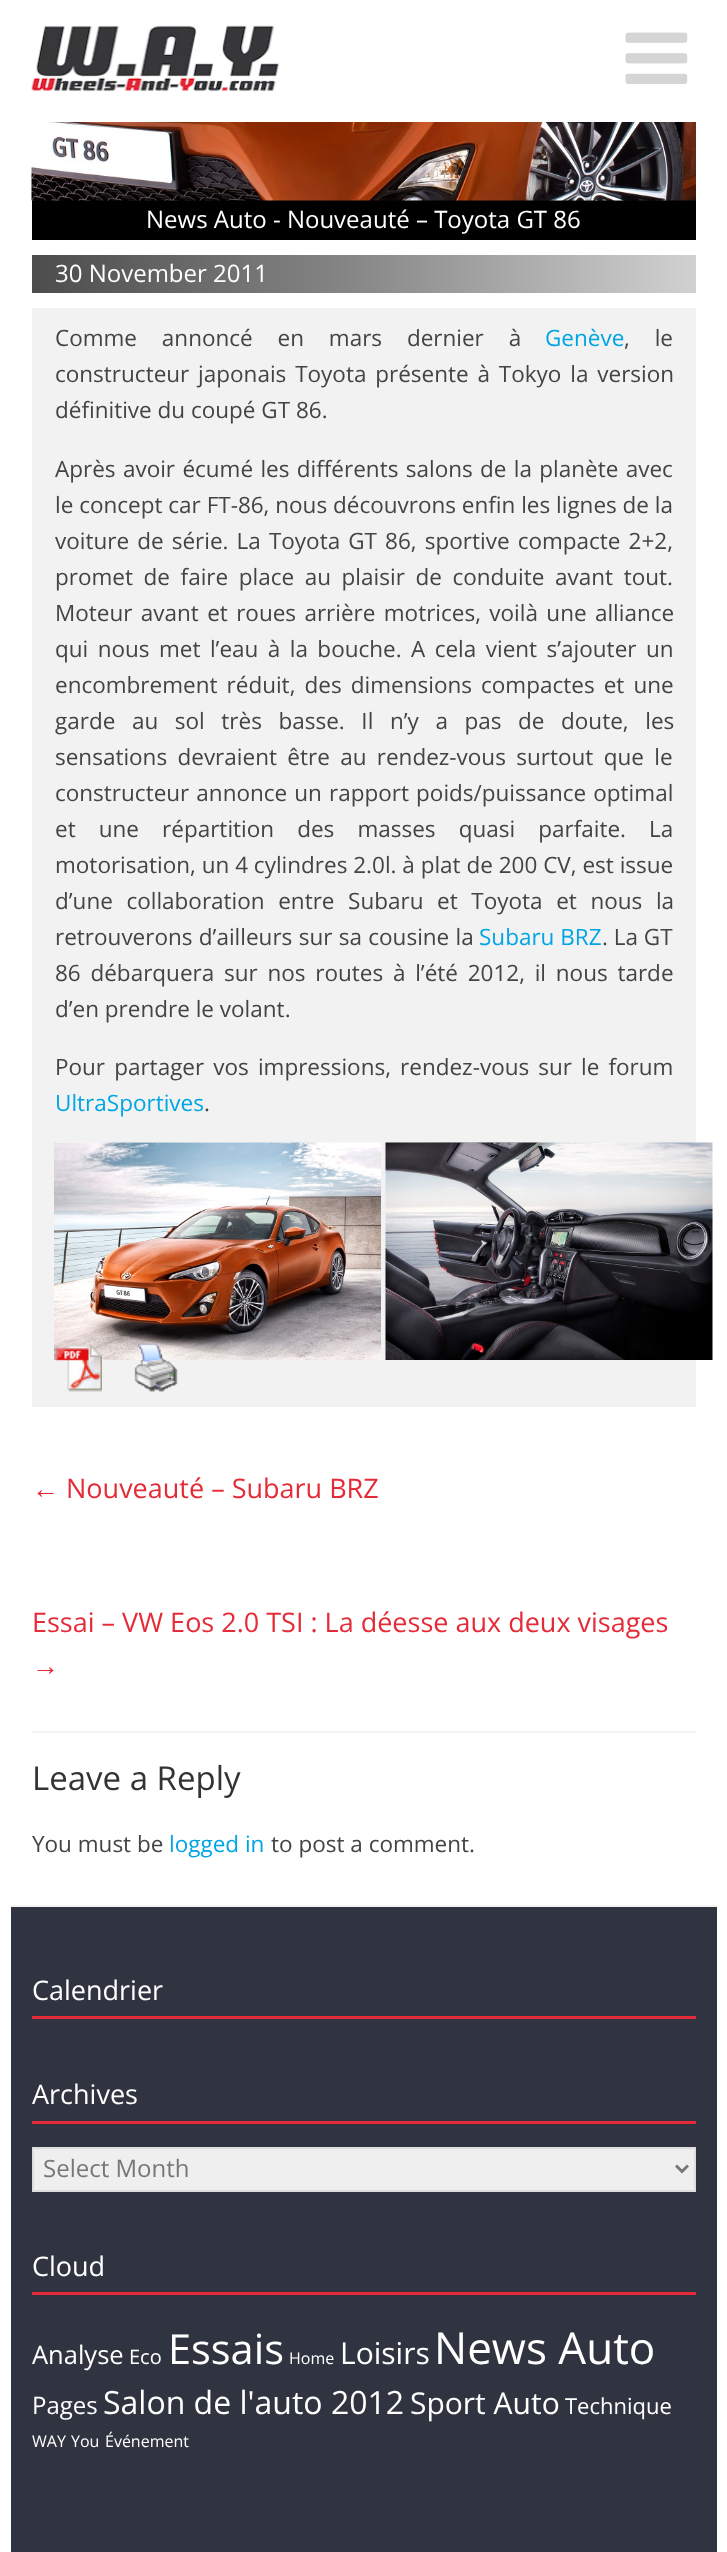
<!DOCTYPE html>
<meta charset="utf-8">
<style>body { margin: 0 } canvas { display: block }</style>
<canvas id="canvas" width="727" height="2552"></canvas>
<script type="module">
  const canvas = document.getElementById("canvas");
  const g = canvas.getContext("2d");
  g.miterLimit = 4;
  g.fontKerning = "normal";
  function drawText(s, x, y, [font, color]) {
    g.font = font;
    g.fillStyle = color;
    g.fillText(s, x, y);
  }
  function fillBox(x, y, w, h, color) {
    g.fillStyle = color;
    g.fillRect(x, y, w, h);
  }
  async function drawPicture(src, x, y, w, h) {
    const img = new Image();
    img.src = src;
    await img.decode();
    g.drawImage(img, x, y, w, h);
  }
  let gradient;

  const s1 = ["24px Open Sans", "#FFFFFF"];
  const s2 = ["22.5px Open Sans", "#444444"];
  const s3 = ["22.5px Open Sans", "#00A5E4"];
  const s4 = ["27px Liberation Serif", "#E52B38"];
  const s5 = ["27px Open Sans", "#E52B38"];
  const s6 = ["33px Open Sans", "#333333"];
  const s7 = ["27px Open Sans", "#FFFFFF"];
  const s8 = ["24px Open Sans", "#777777"];
  const s9 = ["25.5px Open Sans", "#FFFFFF"];
  const s10 = ["20px Open Sans", "#FFFFFF"];
  const s11 = ["41.5px Open Sans", "#FFFFFF"];
  const s12 = ["16px Open Sans", "#FFFFFF"];
  const s13 = ["30px Open Sans", "#FFFFFF"];
  const s14 = ["44px Open Sans", "#FFFFFF"];
  const s15 = ["32px Open Sans", "#FFFFFF"];
  const s16 = ["22px Open Sans", "#FFFFFF"];

  fillBox(0, 0, 727, 2552, "#FFFFFF");
  await drawPicture("pic1.png", 31, 25, 249, 67);
  await drawPicture("pic2.png", 625, 32, 63, 52);
  fillBox(32, 200, 664, 40, "#000000");
  await drawPicture("pic3.png", 31, 122, 665, 79);
  drawText("News Auto - Nouveauté – Toyota GT 86", 146, 228, s1);
  gradient = g.createLinearGradient(32, 274, 696, 274);
  gradient.addColorStop(0, "#4C4C4C");
  gradient.addColorStop(0.5, "#898989");
  gradient.addColorStop(1, "#D1D1D1");
  g.fillStyle = gradient;
  g.fillRect(32, 255, 664, 38);
  drawText("30 November 2011", 55, 282, s1);
  fillBox(32, 308, 664, 1099, "#F2F2F2");
  g.wordSpacing = "19px";
  drawText("Comme annoncé en mars dernier à", 55, 346, s2);
  g.wordSpacing = "0px";
  drawText("Genève", 545, 346, s3);
  g.wordSpacing = "19px";
  drawText(", le", 624, 346, s2);
  g.wordSpacing = "3px";
  drawText("constructeur japonais Toyota présente à Tokyo la version", 55, 382, s2);
  g.wordSpacing = "0px";
  drawText("définitive du coupé GT 86.", 55, 418, s2);
  g.wordSpacing = "1.5px";
  drawText("Après avoir écumé les différents salons de la planète avec", 55, 477, s2);
  g.wordSpacing = "0px";
  drawText("le concept car FT-86, nous découvrons enfin les lignes de la", 55, 513, s2);
  g.wordSpacing = "2.25px";
  drawText("voiture de série. La Toyota GT 86, sportive compacte 2+2,", 55, 549, s2);
  g.wordSpacing = "4.75px";
  drawText("promet de faire place au plaisir de conduite avant tout.", 55, 585, s2);
  g.wordSpacing = "2.5px";
  drawText("Moteur avant et roues arrière motrices, voilà une alliance", 55, 621, s2);
  g.wordSpacing = "3.6px";
  drawText("qui nous met l’eau à la bouche. A cela vient s’ajouter un", 55, 657, s2);
  g.wordSpacing = "3.25px";
  drawText("encombrement réduit, des dimensions compactes et une", 55, 693, s2);
  g.wordSpacing = "10.75px";
  drawText("garde au sol très basse. Il n’y a pas de doute, les", 55, 729, s2);
  g.wordSpacing = "4.5px";
  drawText("sensations devraient être au rendez-vous surtout que le", 55, 765, s2);
  g.wordSpacing = "1.25px";
  drawText("constructeur annonce un rapport poids/puissance optimal", 55, 801, s2);
  g.wordSpacing = "17.25px";
  drawText("et une répartition des masses quasi parfaite. La", 55, 837, s2);
  g.wordSpacing = "0px";
  drawText("motorisation, un 4 cylindres 2.0l. à plat de 200 CV, est issue", 55, 873, s2);
  g.wordSpacing = "7.75px";
  drawText("d’une collaboration entre Subaru et Toyota et nous la", 55, 909, s2);
  g.wordSpacing = "0.5px";
  drawText("retrouverons d’ailleurs sur sa cousine la", 55, 945, s2);
  g.wordSpacing = "0px";
  drawText("Subaru BRZ", 479, 945, s3);
  drawText(". La GT", 602, 945, s2);
  g.wordSpacing = "3.9px";
  drawText("86 débarquera sur nos routes à l’été 2012, il nous tarde", 55, 981, s2);
  g.wordSpacing = "0px";
  drawText("d’en prendre le volant.", 55, 1017, s2);
  g.wordSpacing = "3.25px";
  drawText("Pour partager vos impressions, rendez-vous sur le forum", 55, 1075, s2);
  g.wordSpacing = "0px";
  drawText("UltraSportives", 55, 1111, s3);
  drawText(".", 204, 1111, s2);
  await drawPicture("pic4.png", 54, 1142, 327, 218);
  await drawPicture("pic5.png", 385, 1142, 328, 218);
  await drawPicture("pic6.png", 55, 1345, 47, 47);
  await drawPicture("pic7.png", 134, 1343, 44, 49);
  drawText("←", 32, 1498, s4);
  drawText("Nouveauté – Subaru BRZ", 66, 1498, s5);
  drawText("Essai – VW Eos 2.0 TSI : La déesse aux deux visages", 32, 1632, s5);
  drawText("→", 32, 1675, s4);
  fillBox(32, 1731, 664, 2, "#F2F2F2");
  drawText("Leave a Reply", 32, 1790, s6);
  drawText("You must be", 32, 1852, s2);
  drawText("logged in", 169, 1852, s3);
  drawText("to post a comment.", 271, 1852, s2);
  fillBox(11, 1907, 706, 645, "#303440");
  fillBox(11, 1905, 706, 2, "#F2F2F2");
  fillBox(32, 2016, 664, 3, "#E52B38");
  drawText("Calendrier", 32, 2000, s7);
  fillBox(32, 2121, 664, 3, "#E52B38");
  drawText("Archives", 32, 2104, s7);
  g.fillStyle = "#EFEFEF";
  g.beginPath();
  g.rect(33, 2148, 662, 43);
  g.fill();
  g.strokeStyle = "#DDDDDD";
  g.lineWidth = 2;
  g.stroke();
  g.beginPath();
  g.moveTo(676, 2165.5);
  g.lineTo(682, 2171.5);
  g.lineTo(688, 2165.5);
  g.strokeStyle = "#777777";
  g.lineWidth = 3;
  g.stroke();
  drawText("Select Month", 43, 2177, s8);
  fillBox(32, 2292, 664, 3, "#E52B38");
  drawText("Cloud", 32, 2276, s7);
  drawText("Analyse", 32, 2364, s9);
  drawText("Eco", 129, 2364, s10);
  drawText("Essais", 168, 2364, s11);
  drawText("Home", 289, 2364, s12);
  drawText("Loisirs", 340, 2364, s13);
  drawText("News Auto", 434, 2364, s14);
  drawText("Pages", 32, 2414, s1);
  drawText("Salon de l'auto 2012", 103, 2414, s15);
  drawText("Sport Auto", 410, 2414, s13);
  drawText("Technique", 565, 2414, s16);
  drawText("WAY", 32, 2447, s12);
  drawText("You", 71, 2447, s12);
  drawText("Événement", 105, 2447, s12);
</script>
